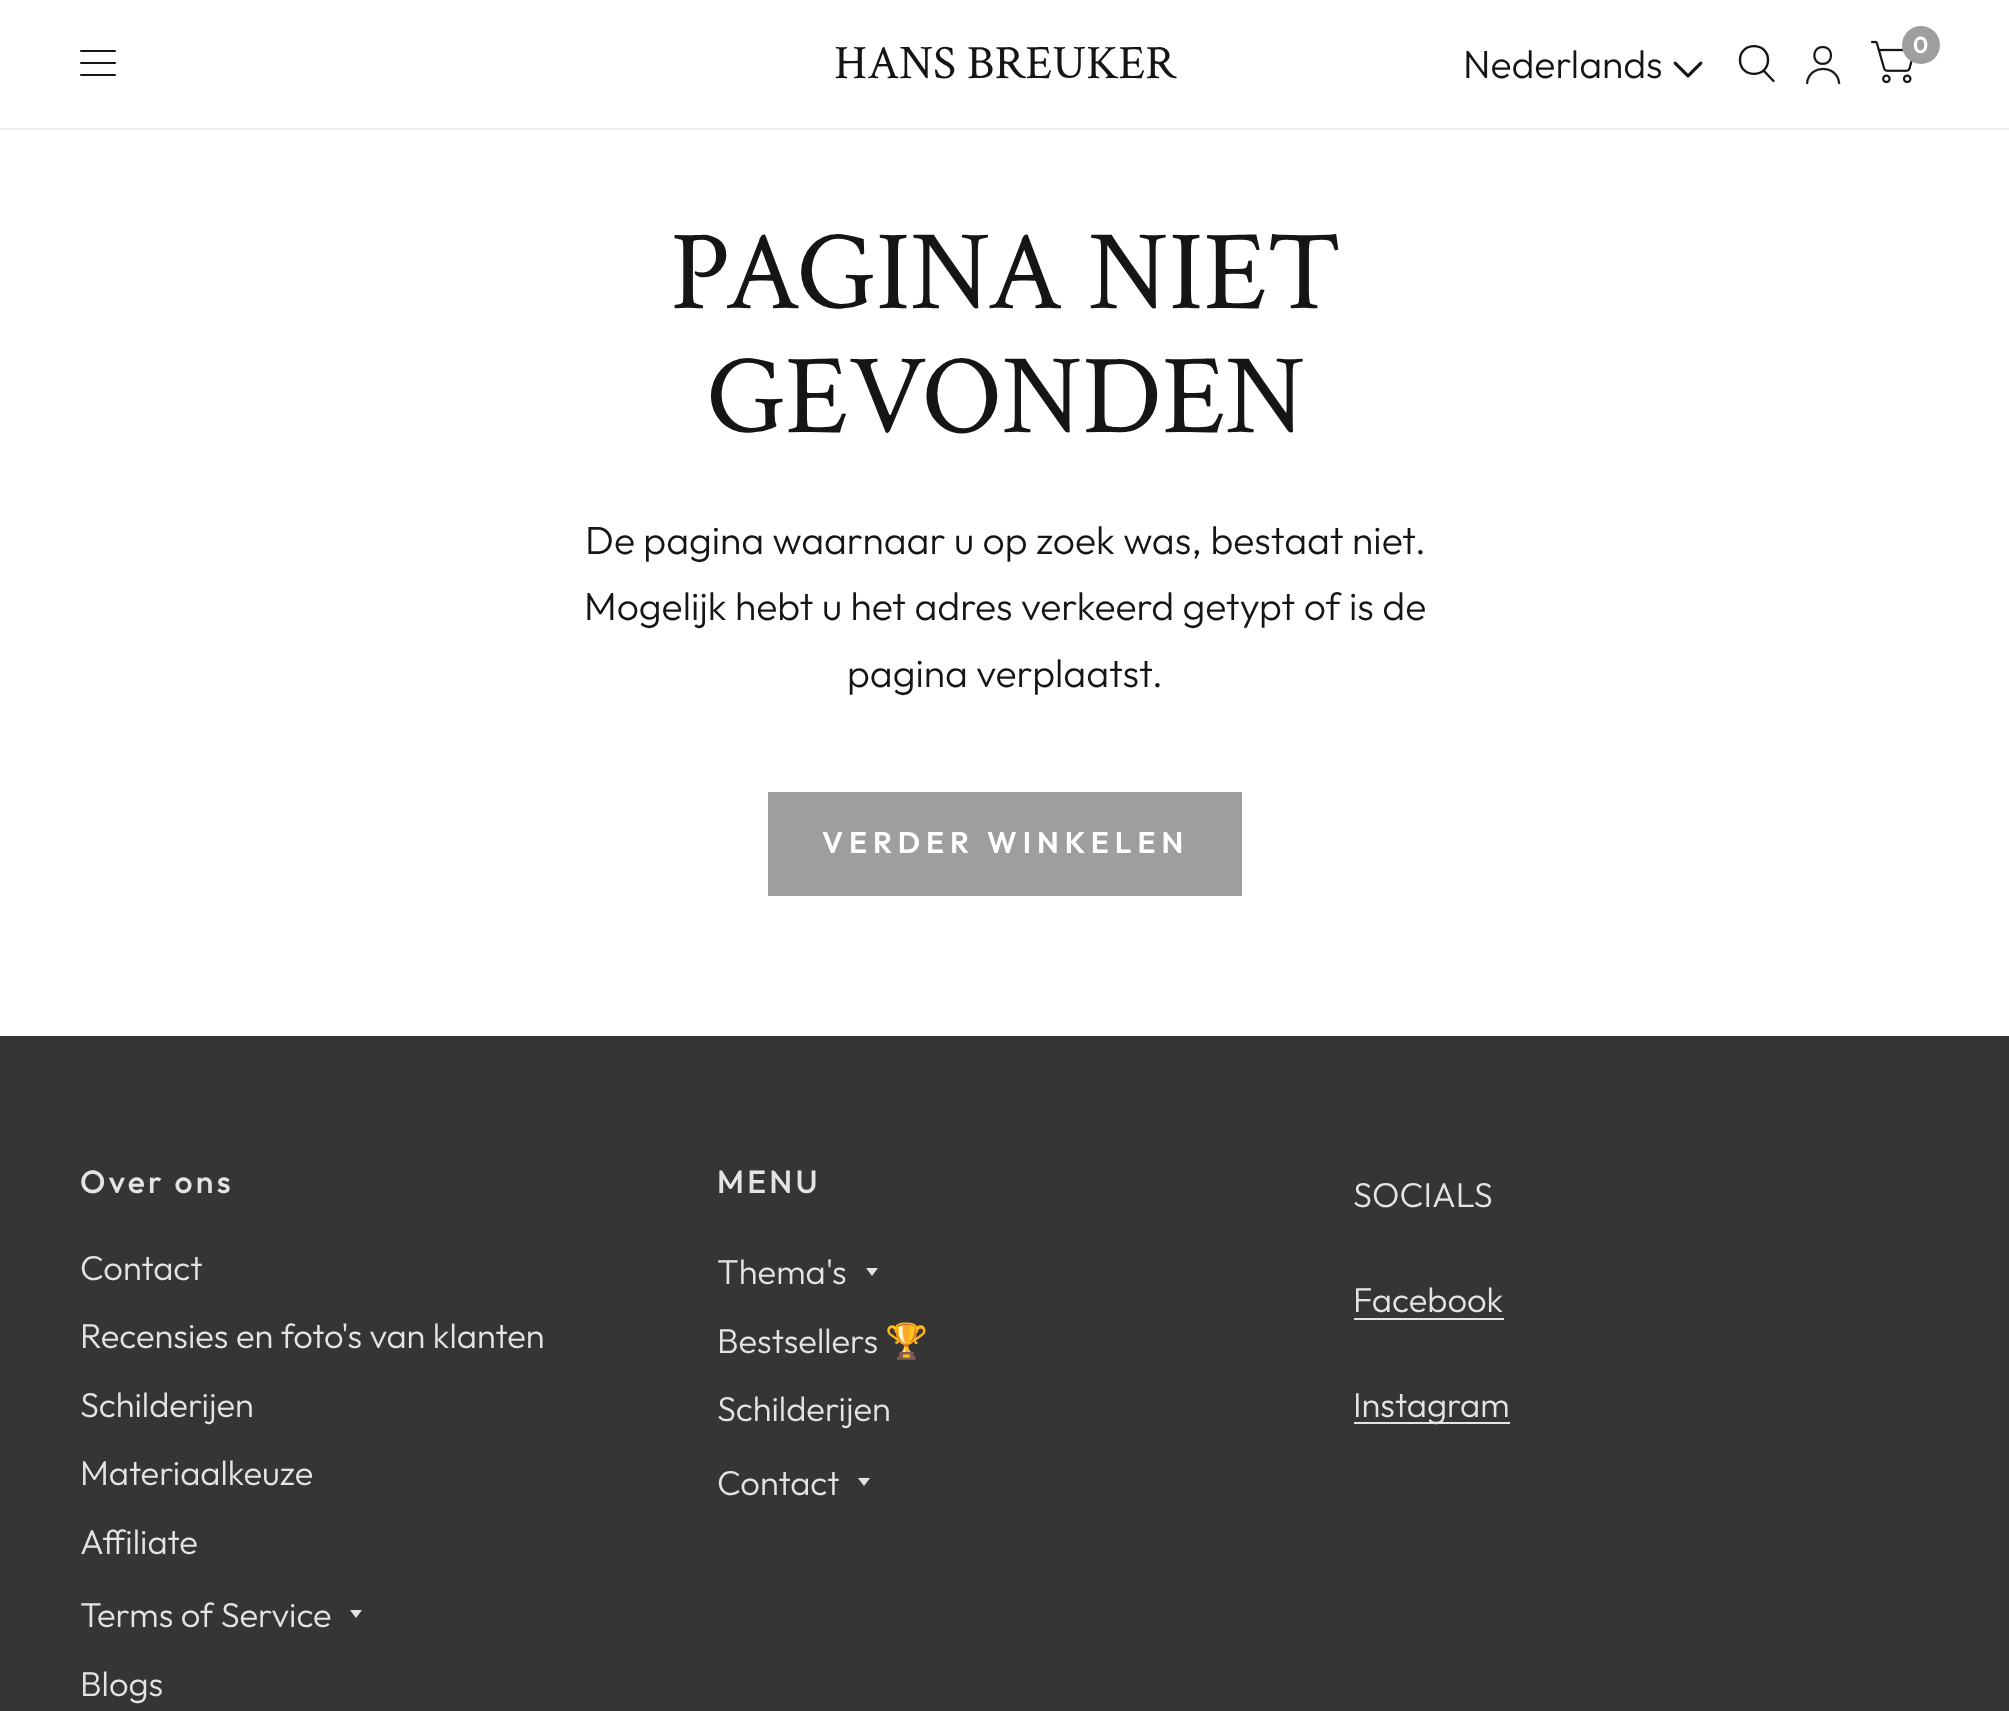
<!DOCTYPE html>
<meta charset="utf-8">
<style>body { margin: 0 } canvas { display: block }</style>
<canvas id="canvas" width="2009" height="1711"></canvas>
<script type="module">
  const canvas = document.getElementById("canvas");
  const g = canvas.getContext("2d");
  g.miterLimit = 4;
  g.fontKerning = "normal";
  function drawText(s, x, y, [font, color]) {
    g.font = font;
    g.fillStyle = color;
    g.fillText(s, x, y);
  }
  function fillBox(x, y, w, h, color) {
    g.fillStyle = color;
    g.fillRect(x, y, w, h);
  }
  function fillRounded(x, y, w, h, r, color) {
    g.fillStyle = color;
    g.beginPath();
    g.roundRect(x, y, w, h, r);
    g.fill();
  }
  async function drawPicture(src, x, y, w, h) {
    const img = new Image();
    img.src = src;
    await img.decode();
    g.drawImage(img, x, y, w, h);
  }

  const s1 = ["48px Crimson Text", "#151515"];
  const s2 = ["300 39.1px Outfit", "#151515"];
  const s3 = ["600 23px Outfit", "#FFFFFF"];
  const s4 = ["113.5px Crimson Text", "#151515"];
  const s5 = ["600 29.9px Outfit", "#FFFFFF"];
  const s6 = ["500 32px Outfit", "#E4E4E4"];
  const s7 = ["300 34.5px Outfit", "#E4E4E4"];
  const s8 = ["34.5px Noto Color Emoji", "#E4E4E4"];

  fillBox(0, 0, 2009, 1711, "#FFFFFF");
  fillBox(0, 128, 2009, 2, "#EEEEEE");
  fillRounded(80, 50, 36, 2, 1, "#151515");
  fillRounded(80, 62, 36, 2, 1, "#151515");
  fillRounded(80, 74, 36, 2, 1, "#151515");
  drawText("HANS BREUKER", 834, 78, s1);
  drawText("Nederlands", 1463, 78, s2);
  await drawPicture("pic1.png", 1673, 61, 30, 17);
  g.beginPath();
  g.moveTo(1764, 71);
  g.lineTo(1773.5, 81);
  g.moveTo(1768, 60);
  g.bezierCurveTo(1768, 78.5, 1740, 78.5, 1740, 60);
  g.bezierCurveTo(1740, 41.5, 1768, 41.5, 1768, 60);
  g.closePath();
  g.strokeStyle = "#151515";
  g.lineWidth = 2.4;
  g.lineCap = "round";
  g.lineJoin = "round";
  g.stroke();
  await drawPicture("pic2.png", 1805, 45, 36, 40);
  await drawPicture("pic3.png", 1870, 40, 43, 44);
  g.fillStyle = "#9E9E9E";
  g.beginPath();
  g.arc(1921, 45, 19, 0, Math.PI * 2);
  g.fill();
  drawText("0", 1913, 53, s3);
  drawText("PAGINA NIET", 670, 308, s4);
  drawText("GEVONDEN", 706, 432, s4);
  drawText("De pagina waarnaar u op zoek was, bestaat niet.", 585, 554, s2);
  drawText("Mogelijk hebt u het adres verkeerd getypt of is de", 584, 620, s2);
  drawText("pagina verplaatst.", 847, 687, s2);
  fillBox(768, 792, 474, 104, "#9E9E9E");
  g.letterSpacing = "6px";
  drawText("VERDER WINKELEN", 822, 853, s5);
  fillBox(0, 1036, 2009, 675, "#353535");
  g.letterSpacing = "3.25px";
  drawText("Over ons", 80, 1193, s6);
  g.letterSpacing = "0px";
  drawText("Contact", 80, 1280, s7);
  drawText("Recensies en foto's van klanten", 80, 1348, s7);
  drawText("Schilderijen", 80, 1417, s7);
  drawText("Materiaalkeuze", 80, 1485, s7);
  drawText("Affiliate", 80, 1554, s7);
  drawText("Terms of Service", 80, 1627, s7);
  g.beginPath();
  g.moveTo(350, 1610);
  g.lineTo(362, 1610);
  g.lineTo(356, 1618);
  g.closePath();
  g.fill();
  drawText("Blogs", 80, 1696, s7);
  g.letterSpacing = "3.25px";
  drawText("MENU", 717, 1193, s6);
  g.letterSpacing = "0px";
  drawText("Thema's", 717, 1284, s7);
  g.beginPath();
  g.moveTo(866, 1268);
  g.lineTo(878, 1268);
  g.lineTo(872, 1276);
  g.closePath();
  g.fill();
  drawText("Bestsellers", 717, 1353, s7);
  drawText("🏆", 885, 1353, s8);
  drawText("Schilderijen", 717, 1421, s7);
  drawText("Contact", 717, 1495, s7);
  g.beginPath();
  g.moveTo(858, 1478);
  g.lineTo(870, 1478);
  g.lineTo(864, 1486);
  g.closePath();
  g.fill();
  drawText("SOCIALS", 1353, 1207, s7);
  drawText("Facebook", 1353, 1312, s7);
  fillBox(1354, 1318, 150, 2, "#E4E4E4");
  fillBox(1354, 1422, 156, 2, "#E4E4E4");
  drawText("Instagram", 1353, 1417, s7);
</script>
